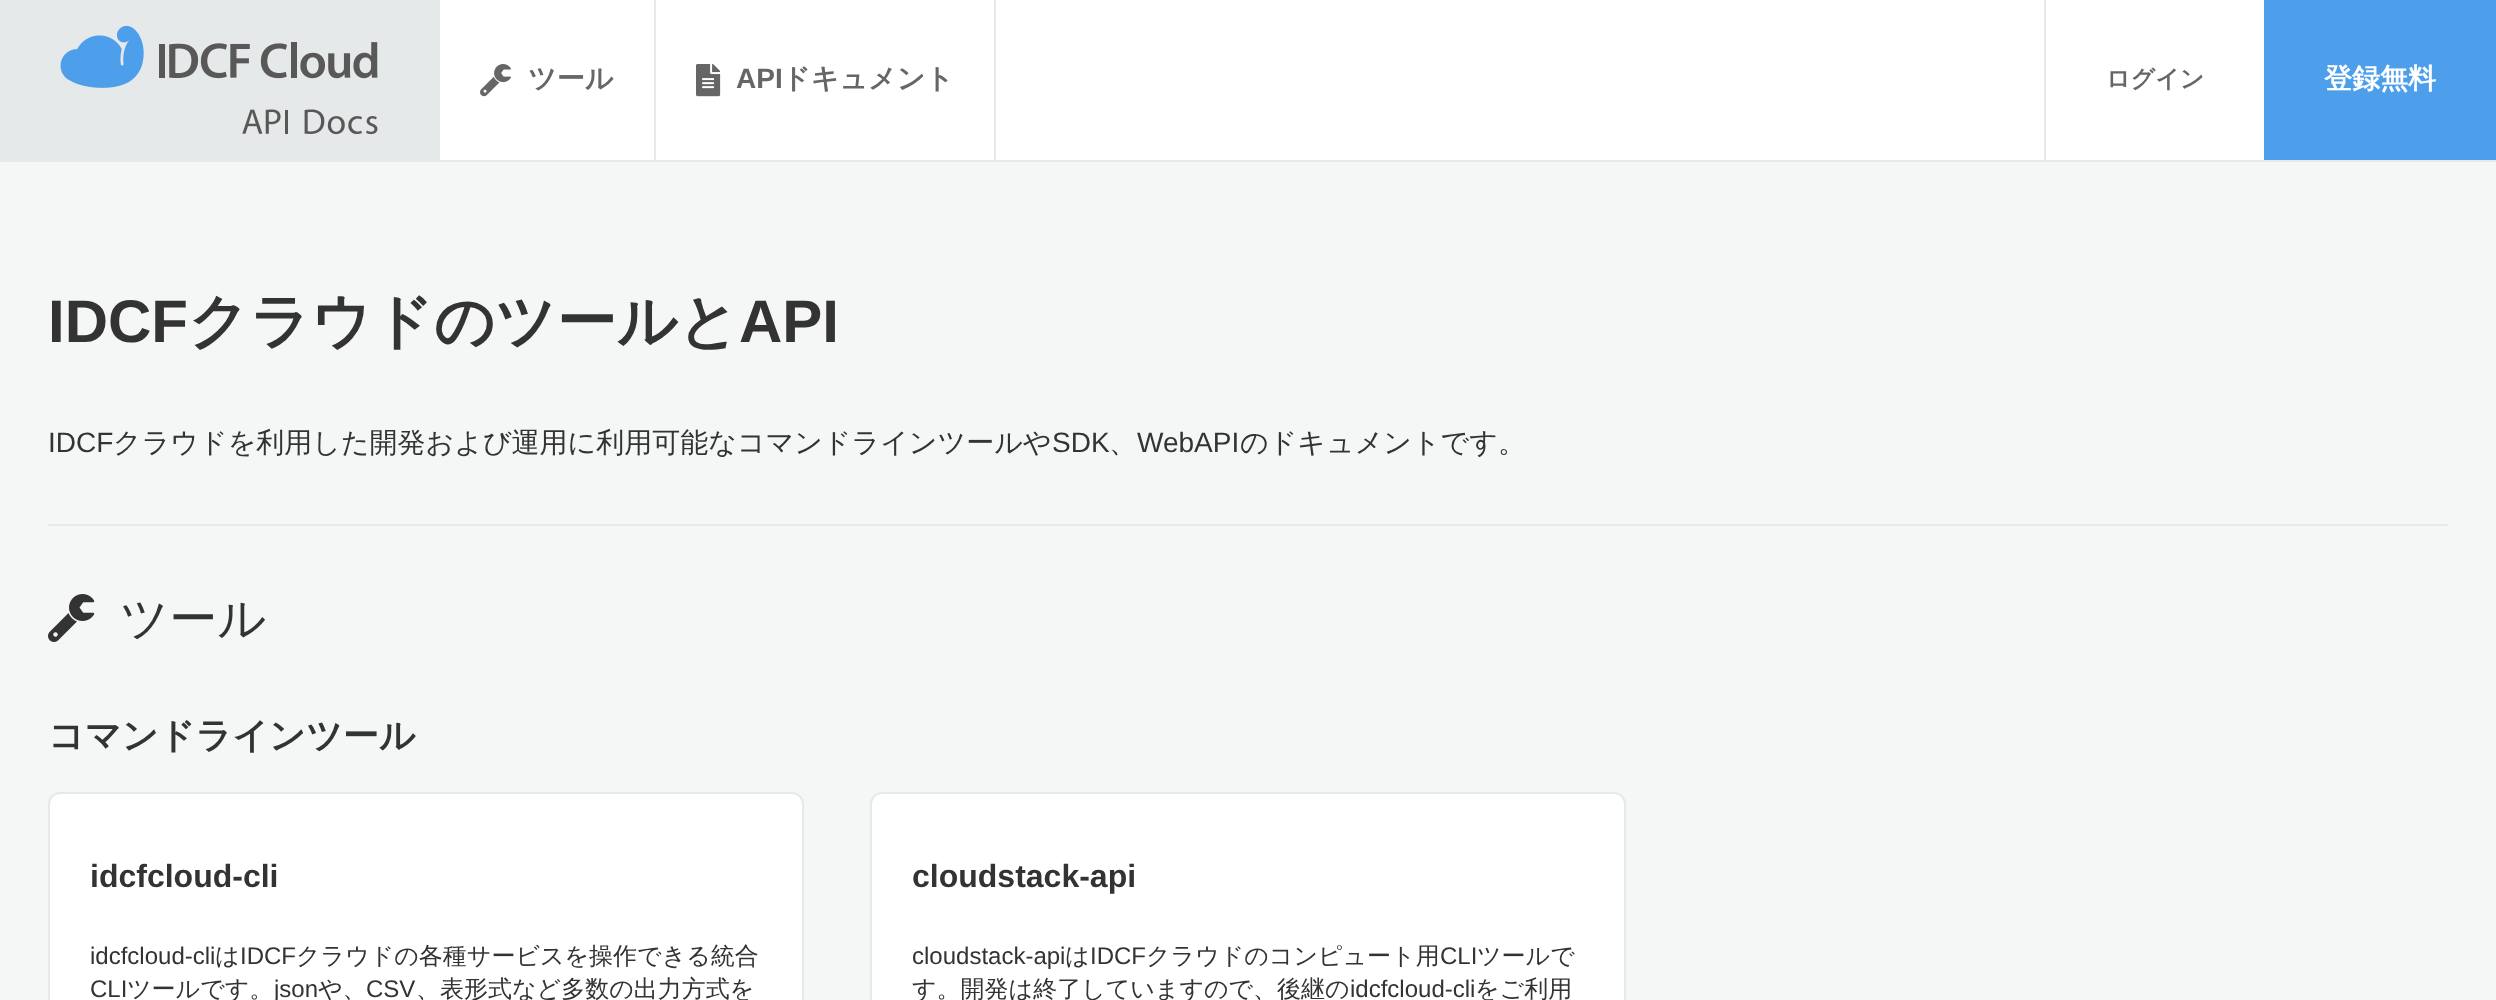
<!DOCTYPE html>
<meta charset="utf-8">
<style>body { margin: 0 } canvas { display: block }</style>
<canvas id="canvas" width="2496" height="1000"></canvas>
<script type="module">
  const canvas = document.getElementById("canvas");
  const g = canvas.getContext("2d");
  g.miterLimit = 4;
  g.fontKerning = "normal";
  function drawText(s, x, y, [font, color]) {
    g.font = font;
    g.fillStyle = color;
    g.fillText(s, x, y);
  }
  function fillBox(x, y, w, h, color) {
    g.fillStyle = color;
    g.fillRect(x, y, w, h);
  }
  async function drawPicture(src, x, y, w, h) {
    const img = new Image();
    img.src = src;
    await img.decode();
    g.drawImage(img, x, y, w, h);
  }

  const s1 = ["bold 28px WenQuanYi Zen Hei", "#666666"];
  const s2 = ["bold 28px Liberation Sans", "#666666"];
  const s3 = ["bold 24px WenQuanYi Zen Hei", "#666666"];
  const s4 = ["bold 28px WenQuanYi Zen Hei", "#FFFFFF"];
  const s5 = ["bold 60px Liberation Sans", "#333333"];
  const s6 = ["bold 60px WenQuanYi Zen Hei", "#333333"];
  const s7 = ["28px Liberation Sans", "#333333"];
  const s8 = ["500 28px WenQuanYi Zen Hei", "#333333"];
  const s9 = ["500 48px WenQuanYi Zen Hei", "#333333"];
  const s10 = ["bold 36px WenQuanYi Zen Hei", "#333333"];
  const s11 = ["bold 32px Liberation Sans", "#333333"];
  const s12 = ["24px Liberation Sans", "#333333"];
  const s13 = ["500 24px WenQuanYi Zen Hei", "#333333"];

  fillBox(0, 0, 2496, 1000, "#FFFFFF");
  fillBox(0, 160, 2496, 2, "#E5E9E9");
  fillBox(0, 0, 440, 160, "#E5E9E9");
  await drawPicture("pic1.png", 60, 25, 318, 110);
  fillBox(654, 0, 2, 160, "#E5E9E9");
  await drawPicture("pic2.png", 480, 64, 31, 33);
  drawText("ツール", 528, 88, s1);
  fillBox(994, 0, 2, 160, "#E5E9E9");
  await drawPicture("pic3.png", 696, 64, 25, 33);
  drawText("API", 736, 88, s2);
  drawText("ドキュメント", 782, 88, s1);
  fillBox(2044, 0, 2, 160, "#E5E9E9");
  drawText("ログイン", 2106, 87, s3);
  fillBox(2264, 0, 232, 160, "#4D9FEB");
  drawText("登録無料", 2324, 88, s4);
  fillBox(0, 162, 2496, 838, "#F4F7F6");
  drawText("IDCF", 48, 342, s5);
  drawText("クラウドのツールと", 188, 342, s6);
  drawText("API", 739, 342, s5);
  drawText("IDCF", 48, 452, s7);
  drawText("クラウドを利用した開発および運用に利用可能なコマンドラインツールや", 113, 452, s8);
  drawText("SDK", 1052, 452, s7);
  drawText("、", 1109, 452, s8);
  drawText("WebAPI", 1137, 452, s7);
  drawText("のドキュメントです。", 1240, 452, s8);
  fillBox(48, 524, 2400, 2, "#E5E9E9");
  await drawPicture("pic4.png", 48, 594, 47, 48);
  drawText("ツール", 120, 635, s9);
  drawText("コマンドラインツール", 48, 748, s10);
  g.fillStyle = "#FFFFFF";
  g.beginPath();
  g.roundRect(49, 793, 754, 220, 11);
  g.fill();
  g.strokeStyle = "#E5E9E9";
  g.lineWidth = 2;
  g.stroke();
  drawText("idcfcloud-cli", 90, 887, s11);
  drawText("idcfcloud-cli", 90, 964, s12);
  drawText("は", 215, 964, s13);
  drawText("IDCF", 240, 964, s12);
  drawText("クラウドの各種サービスを操作できる統合", 296, 964, s13);
  drawText("CLI", 90, 997, s12);
  drawText("ツールです。", 127, 997, s13);
  drawText("json", 274, 997, s12);
  drawText("や、", 318, 997, s13);
  drawText("CSV", 366, 997, s12);
  drawText("、表形式など多数の出力方式を", 416, 997, s13);
  g.fillStyle = "#FFFFFF";
  g.beginPath();
  g.roundRect(871, 793, 754, 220, 11);
  g.fill();
  g.stroke();
  drawText("cloudstack-api", 912, 887, s11);
  drawText("cloudstack-api", 912, 964, s12);
  drawText("は", 1065, 964, s13);
  drawText("IDCF", 1090, 964, s12);
  drawText("クラウドのコンピュート用", 1146, 964, s13);
  drawText("CLI", 1440, 964, s12);
  drawText("ツールで", 1477, 964, s13);
  drawText("す。開発は終了していますので、後継の", 912, 997, s13);
  drawText("idcfcloud-cli", 1350, 997, s12);
  drawText("をご利用", 1475, 997, s13);
</script>
